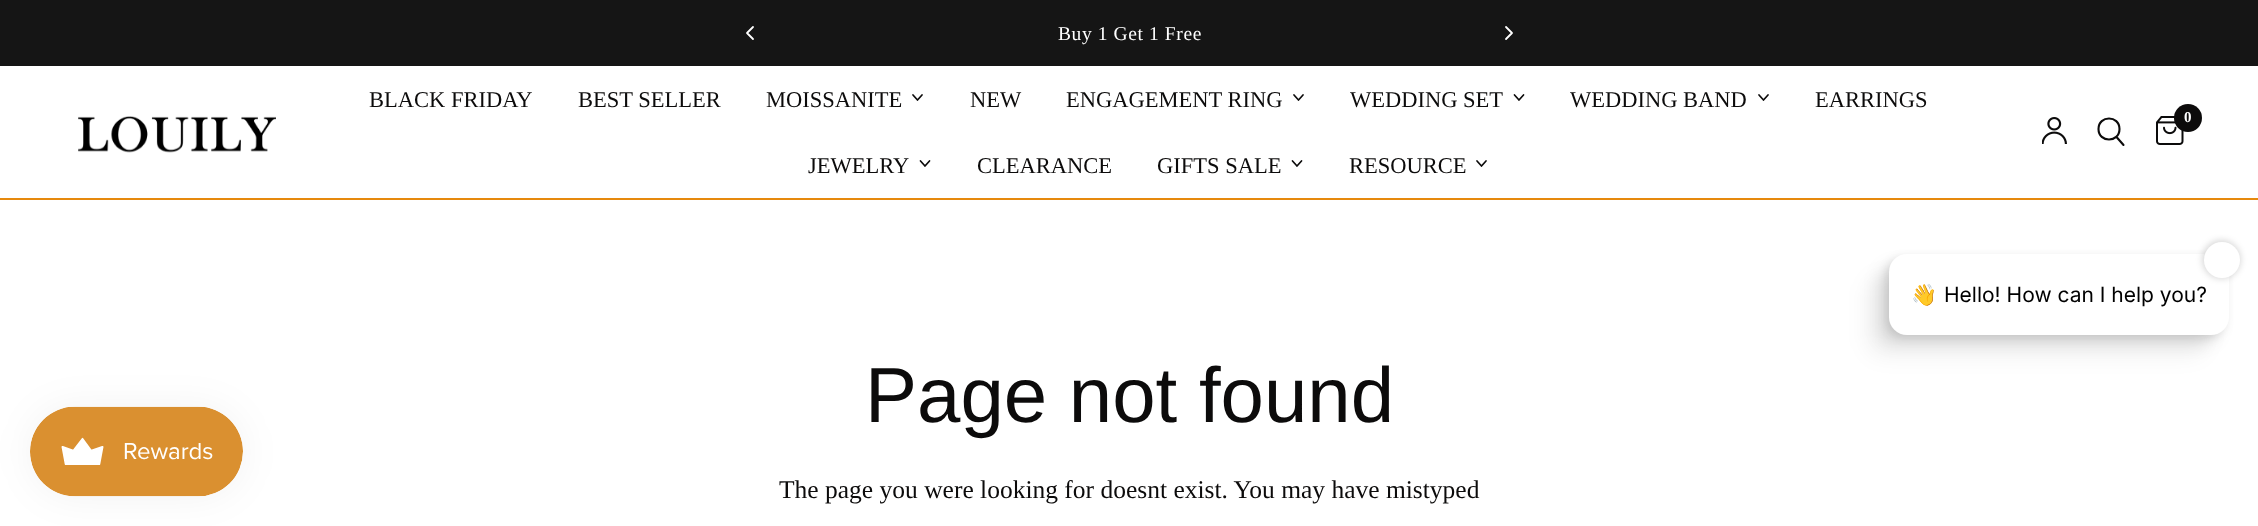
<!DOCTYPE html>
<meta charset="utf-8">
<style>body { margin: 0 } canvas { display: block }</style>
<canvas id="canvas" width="2258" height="526"></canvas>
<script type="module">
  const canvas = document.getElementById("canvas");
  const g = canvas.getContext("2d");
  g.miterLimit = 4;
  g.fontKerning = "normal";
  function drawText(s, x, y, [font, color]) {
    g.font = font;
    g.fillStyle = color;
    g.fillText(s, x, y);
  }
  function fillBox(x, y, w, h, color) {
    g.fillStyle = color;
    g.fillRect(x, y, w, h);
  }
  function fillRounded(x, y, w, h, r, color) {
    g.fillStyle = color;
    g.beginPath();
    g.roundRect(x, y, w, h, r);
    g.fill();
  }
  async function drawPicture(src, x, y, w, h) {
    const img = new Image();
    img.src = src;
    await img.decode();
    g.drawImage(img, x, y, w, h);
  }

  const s1 = ["19.5px Liberation Serif", "#FFFFFF"];
  const s2 = ["22.5px Liberation Serif", "#0C0B0B"];
  const s3 = ["bold 15px Liberation Serif", "#FFFFFF"];
  const s4 = ["78px Liberation Sans", "#0C0B0B"];
  const s5 = ["25.5px Liberation Serif", "#0C0B0B"];
  const s6 = ["21px Noto Color Emoji", "#000000"];
  const s7 = ["21px Inter", "#000000"];

  fillBox(0, 0, 2258, 526, "#FFFFFF");
  fillBox(0, 0, 2258, 66, "#151515");
  g.beginPath();
  g.moveTo(753, 27);
  g.lineTo(747, 33);
  g.lineTo(753, 39);
  g.strokeStyle = "#FFFFFF";
  g.lineWidth = 1.8;
  g.lineCap = "round";
  g.lineJoin = "round";
  g.stroke();
  g.letterSpacing = "0.6px";
  drawText("Buy 1 Get 1 Free", 1058, 40, s1);
  g.beginPath();
  g.moveTo(1506, 27);
  g.lineTo(1512, 33);
  g.lineTo(1506, 39);
  g.stroke();
  fillBox(0, 198, 2258, 2, "#E6890D");
  await drawPicture("pic1.png", 78, 116, 198, 37);
  g.letterSpacing = "0px";
  drawText("BLACK FRIDAY", 369, 107, s2);
  drawText("BEST SELLER", 578, 107, s2);
  drawText("MOISSANITE", 766, 107, s2);
  g.beginPath();
  g.moveTo(922, 95);
  g.lineTo(917.5, 100);
  g.lineTo(913, 95);
  g.strokeStyle = "#0C0B0B";
  g.lineWidth = 1.7;
  g.stroke();
  drawText("NEW", 970, 107, s2);
  drawText("ENGAGEMENT RING", 1066, 107, s2);
  g.beginPath();
  g.moveTo(1303, 95);
  g.lineTo(1298.5, 100);
  g.lineTo(1294, 95);
  g.stroke();
  drawText("WEDDING SET", 1350, 107, s2);
  g.beginPath();
  g.moveTo(1523.5, 95);
  g.lineTo(1519, 100);
  g.lineTo(1514.5, 95);
  g.stroke();
  drawText("WEDDING BAND", 1570, 107, s2);
  g.beginPath();
  g.moveTo(1768, 95);
  g.lineTo(1763.5, 100);
  g.lineTo(1759, 95);
  g.stroke();
  drawText("EARRINGS", 1815, 107, s2);
  drawText("JEWELRY", 808, 173, s2);
  g.beginPath();
  g.moveTo(929.5, 161);
  g.lineTo(925, 166);
  g.lineTo(920.5, 161);
  g.stroke();
  drawText("CLEARANCE", 977, 173, s2);
  drawText("GIFTS SALE", 1157, 173, s2);
  g.beginPath();
  g.moveTo(1301.5, 161);
  g.lineTo(1297, 166);
  g.lineTo(1292.5, 161);
  g.stroke();
  drawText("RESOURCE", 1349, 173, s2);
  g.beginPath();
  g.moveTo(1486, 161);
  g.lineTo(1481.5, 166);
  g.lineTo(1477, 161);
  g.stroke();
  await drawPicture("pic2.png", 2042, 117, 25, 27);
  g.beginPath();
  g.moveTo(2116.5, 137);
  g.lineTo(2123.5, 145);
  g.moveTo(2119.5, 129);
  g.bezierCurveTo(2119.5, 143, 2098.5, 143, 2098.5, 129);
  g.bezierCurveTo(2098.5, 115, 2119.5, 115, 2119.5, 129);
  g.closePath();
  g.lineWidth = 2.1;
  g.stroke();
  await drawPicture("pic3.png", 2156, 116, 28, 29);
  g.beginPath();
  g.arc(2188, 118, 14, 0, Math.PI * 2);
  g.fill();
  drawText("0", 2184, 122, s3);
  drawText("Page not found", 865, 422, s4);
  drawText("The page you were looking for doesnt exist. You may have mistyped", 779, 498, s5);
  g.fillStyle = "rgba(0, 0, 0, 0.1)";
  g.filter = "blur(4px)";
  g.beginPath();
  g.roundRect(1886, 257, 340, 81, 18);
  g.fill();
  g.filter = "none";
  g.fillStyle = "rgba(0, 0, 0, 0.09)";
  g.filter = "blur(7.5px)";
  g.beginPath();
  g.roundRect(1878, 264, 341, 81, 18);
  g.fill();
  g.filter = "none";
  g.fillStyle = "rgba(0, 0, 0, 0.05)";
  g.filter = "blur(10px)";
  g.beginPath();
  g.roundRect(1866, 276, 341, 81, 18);
  g.fill();
  g.filter = "none";
  fillRounded(1889, 254, 340, 81, 18, "#FFFFFF");
  g.fillStyle = "rgba(0, 0, 0, 0.15)";
  g.filter = "blur(3px)";
  g.beginPath();
  g.roundRect(2202, 240, 39, 39, 19.5);
  g.fill();
  g.filter = "none";
  g.fillStyle = "#FFFFFF";
  g.beginPath();
  g.arc(2222, 260, 18, 0, Math.PI * 2);
  g.fill();
  drawText("👋", 1911, 302, s6);
  drawText("Hello! How can I help you?", 1944, 302, s7);
  g.fillStyle = "rgba(0, 0, 0, 0.05)";
  g.filter = "blur(19px)";
  g.beginPath();
  g.roundRect(30, 407, 213, 90, 45);
  g.fill();
  g.filter = "none";
  await drawPicture("pic4.png", 30, 406, 213, 91);
</script>
